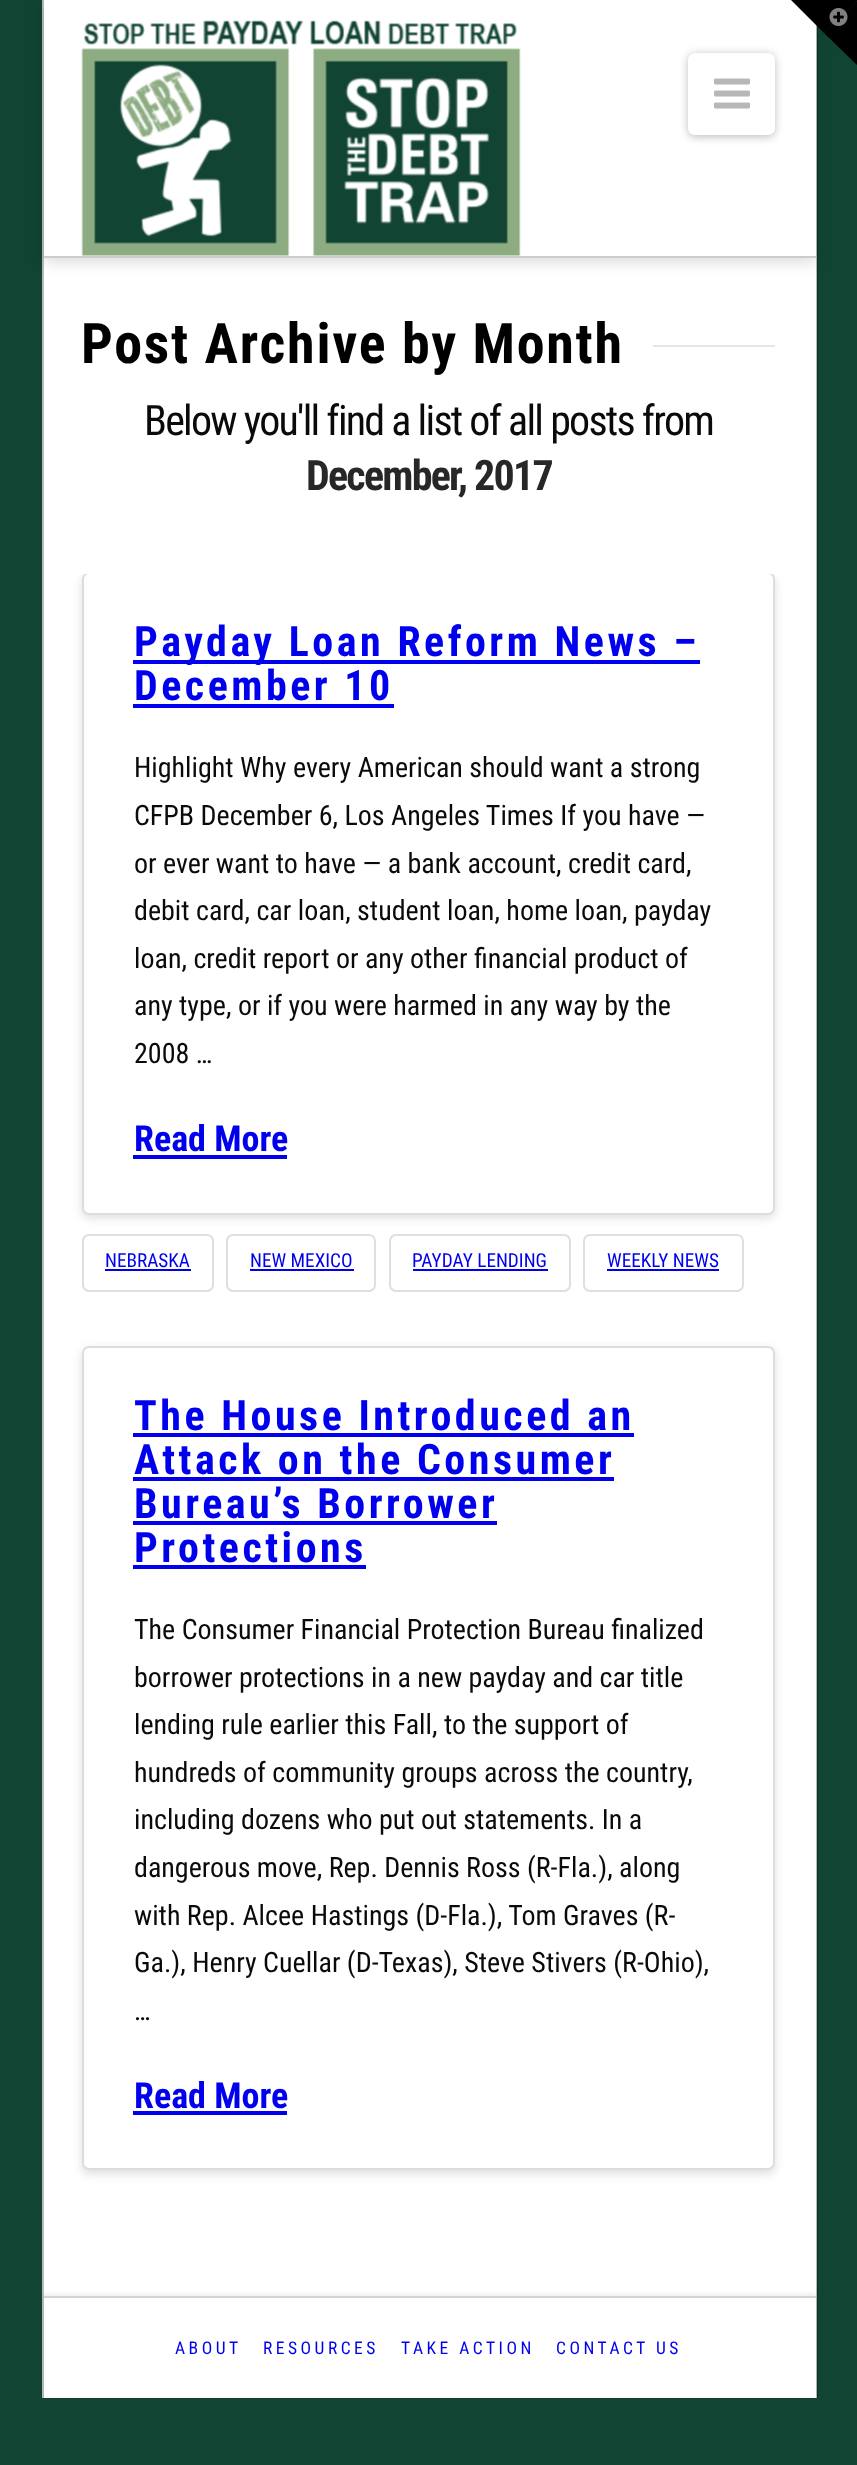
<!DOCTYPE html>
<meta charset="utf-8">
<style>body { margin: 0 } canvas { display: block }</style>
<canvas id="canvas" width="857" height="2465"></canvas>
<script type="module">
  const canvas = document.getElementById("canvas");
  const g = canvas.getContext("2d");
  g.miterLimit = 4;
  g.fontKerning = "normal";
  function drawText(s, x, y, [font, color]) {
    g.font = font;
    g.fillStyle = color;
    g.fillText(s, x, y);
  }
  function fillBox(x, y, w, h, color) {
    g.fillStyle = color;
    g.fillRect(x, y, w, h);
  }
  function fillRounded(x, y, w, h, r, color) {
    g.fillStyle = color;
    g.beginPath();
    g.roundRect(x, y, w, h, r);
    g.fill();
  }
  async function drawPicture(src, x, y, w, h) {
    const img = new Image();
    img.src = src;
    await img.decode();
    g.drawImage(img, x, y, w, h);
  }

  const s1 = ["bold 56px Roboto Condensed", "#000000"];
  const s2 = ["42px Roboto Condensed", "#0A0A0A"];
  const s3 = ["bold 42px Roboto Condensed", "#272727"];
  const s4 = ["bold 42px Roboto Condensed", "#0000EE"];
  const s5 = ["28px Roboto Condensed", "#0A0A0A"];
  const s6 = ["bold 36px Roboto Condensed", "#0000EE"];
  const s7 = ["19.25px Roboto Condensed", "#0000EE"];
  const s8 = ["17.5px Roboto Condensed", "#0000EE"];

  fillBox(0, 0, 857, 2465, "#114433");
  fillBox(44, 25, 773, 2373, "#FFFFFF");
  fillBox(816, 25, 2, 2373, "rgba(0, 0, 0, 0.28)");
  fillBox(42, 0, 2, 2398, "#B9B9B9");
  g.fillStyle = "rgba(0, 0, 0, 0.13)";
  g.filter = "blur(7px)";
  g.beginPath();
  g.rect(44, 5, 772, 258);
  g.fill();
  g.filter = "none";
  fillBox(44, 0, 772, 256, "#FFFFFF");
  fillBox(44, 256, 772, 2, "#CCCCCC");
  await drawPicture("pic1.png", 81, 20, 440, 236);
  g.fillStyle = "rgba(0, 0, 0, 0.25)";
  g.filter = "blur(4.5px)";
  g.beginPath();
  g.roundRect(688, 54, 87, 83, 7);
  g.fill();
  g.filter = "none";
  fillRounded(688, 53, 87, 82, 7, "#FFFFFF");
  await drawPicture("pic2.png", 714, 78, 36, 31);
  g.fillStyle = "#000000";
  g.beginPath();
  g.moveTo(791, 0);
  g.lineTo(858, 0);
  g.lineTo(824, 33);
  g.closePath();
  g.fill();
  g.beginPath();
  g.moveTo(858, 0);
  g.lineTo(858, 66);
  g.lineTo(824, 33);
  g.closePath();
  g.fill();
  await drawPicture("pic3.png", 829, 8, 19, 18);
  g.letterSpacing = "1.75px";
  drawText("Post Archive by Month", 81, 363, s1);
  fillBox(653, 345, 122, 2, "#E6E6E6");
  g.letterSpacing = "-1.75px";
  drawText("Below you'll find a list of all posts from", 144, 435, s2);
  drawText("December, 2017", 306, 490, s3);
  g.save();
  g.beginPath();
  g.rect(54, 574, 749, 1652);
  g.clip();
  g.fillStyle = "rgba(0, 0, 0, 0.13)";
  g.filter = "blur(5px)";
  g.beginPath();
  g.roundRect(82, 576, 693, 642, 7);
  g.fill();
  g.filter = "none";
  g.restore();
  g.save();
  g.beginPath();
  g.rect(54, 574, 749, 1652);
  g.clip();
  g.fillStyle = "#FFFFFF";
  g.beginPath();
  g.roundRect(83, 573, 691, 641, 6);
  g.fill();
  g.strokeStyle = "#DDDDDD";
  g.lineWidth = 2;
  g.stroke();
  g.restore();
  fillBox(133, 660, 567, 4, "#0000EE");
  g.letterSpacing = "3.5px";
  drawText("Payday Loan Reform News –", 134, 656, s4);
  drawText("December 10", 134, 700, s4);
  fillBox(133, 704, 261, 4, "#0000EE");
  g.letterSpacing = "0px";
  drawText("Highlight Why every American should want a strong", 134, 777, s5);
  drawText("CFPB December 6, Los Angeles Times If you have —", 134, 825, s5);
  drawText("or ever want to have — a bank account, credit card,", 134, 873, s5);
  drawText("debit card, car loan, student loan, home loan, payday", 134, 920, s5);
  drawText("loan, credit report or any other financial product of", 134, 968, s5);
  drawText("any type, or if you were harmed in any way by the", 134, 1015, s5);
  drawText("2008 …", 134, 1063, s5);
  drawText("Read More", 134, 1151, s6);
  fillBox(133, 1155, 154, 4, "#0000EE");
  g.beginPath();
  g.roundRect(83, 1235, 130, 56, 6);
  g.strokeStyle = "#DFDFDF";
  g.lineWidth = 2;
  g.stroke();
  drawText("NEBRASKA", 105, 1267, s7);
  fillBox(105, 1269, 86, 2, "#0000EE");
  g.beginPath();
  g.roundRect(227, 1235, 148, 56, 6);
  g.stroke();
  drawText("NEW MEXICO", 250, 1267, s7);
  fillBox(250, 1269, 104, 2, "#0000EE");
  g.beginPath();
  g.roundRect(390, 1235, 180, 56, 6);
  g.stroke();
  drawText("PAYDAY LENDING", 412, 1267, s7);
  fillBox(413, 1269, 135, 2, "#0000EE");
  g.beginPath();
  g.roundRect(584, 1235, 159, 56, 6);
  g.stroke();
  drawText("WEEKLY NEWS", 607, 1267, s7);
  fillBox(607, 1269, 112, 2, "#0000EE");
  g.fillStyle = "rgba(0, 0, 0, 0.13)";
  g.filter = "blur(5px)";
  g.beginPath();
  g.roundRect(82, 1349, 693, 825, 7);
  g.fill();
  g.filter = "none";
  g.fillStyle = "#FFFFFF";
  g.beginPath();
  g.roundRect(83, 1347, 691, 822, 6);
  g.fill();
  g.strokeStyle = "#DDDDDD";
  g.stroke();
  g.letterSpacing = "3.5px";
  drawText("The House Introduced an", 134, 1430, s4);
  fillBox(133, 1433, 501, 4, "#0000EE");
  drawText("Attack on the Consumer", 134, 1474, s4);
  fillBox(133, 1477, 481, 4, "#0000EE");
  drawText("Bureau’s Borrower", 134, 1518, s4);
  fillBox(133, 1521, 364, 4, "#0000EE");
  drawText("Protections", 134, 1562, s4);
  fillBox(133, 1565, 233, 4, "#0000EE");
  g.letterSpacing = "0px";
  drawText("The Consumer Financial Protection Bureau finalized", 134, 1639, s5);
  drawText("borrower protections in a new payday and car title", 134, 1687, s5);
  drawText("lending rule earlier this Fall, to the support of", 134, 1734, s5);
  drawText("hundreds of community groups across the country,", 134, 1782, s5);
  drawText("including dozens who put out statements. In a", 134, 1829, s5);
  drawText("dangerous move, Rep. Dennis Ross (R-Fla.), along", 134, 1877, s5);
  drawText("with Rep. Alcee Hastings (D-Fla.), Tom Graves (R-", 134, 1925, s5);
  drawText("Ga.), Henry Cuellar (D-Texas), Steve Stivers (R-Ohio),", 134, 1972, s5);
  drawText("…", 134, 2020, s5);
  drawText("Read More", 134, 2108, s6);
  fillBox(133, 2111, 154, 4, "#0000EE");
  g.fillStyle = "rgba(0, 0, 0, 0.07)";
  g.filter = "blur(2px)";
  g.beginPath();
  g.rect(44, 2294, 772, 102);
  g.fill();
  g.filter = "none";
  fillBox(44, 2298, 772, 100, "#FFFFFF");
  fillBox(44, 2296, 772, 2, "#D4D4D4");
  g.letterSpacing = "3.5px";
  drawText("ABOUT", 175, 2354, s8);
  drawText("RESOURCES", 263, 2354, s8);
  drawText("TAKE ACTION", 401, 2354, s8);
  drawText("CONTACT US", 556, 2354, s8);
</script>
